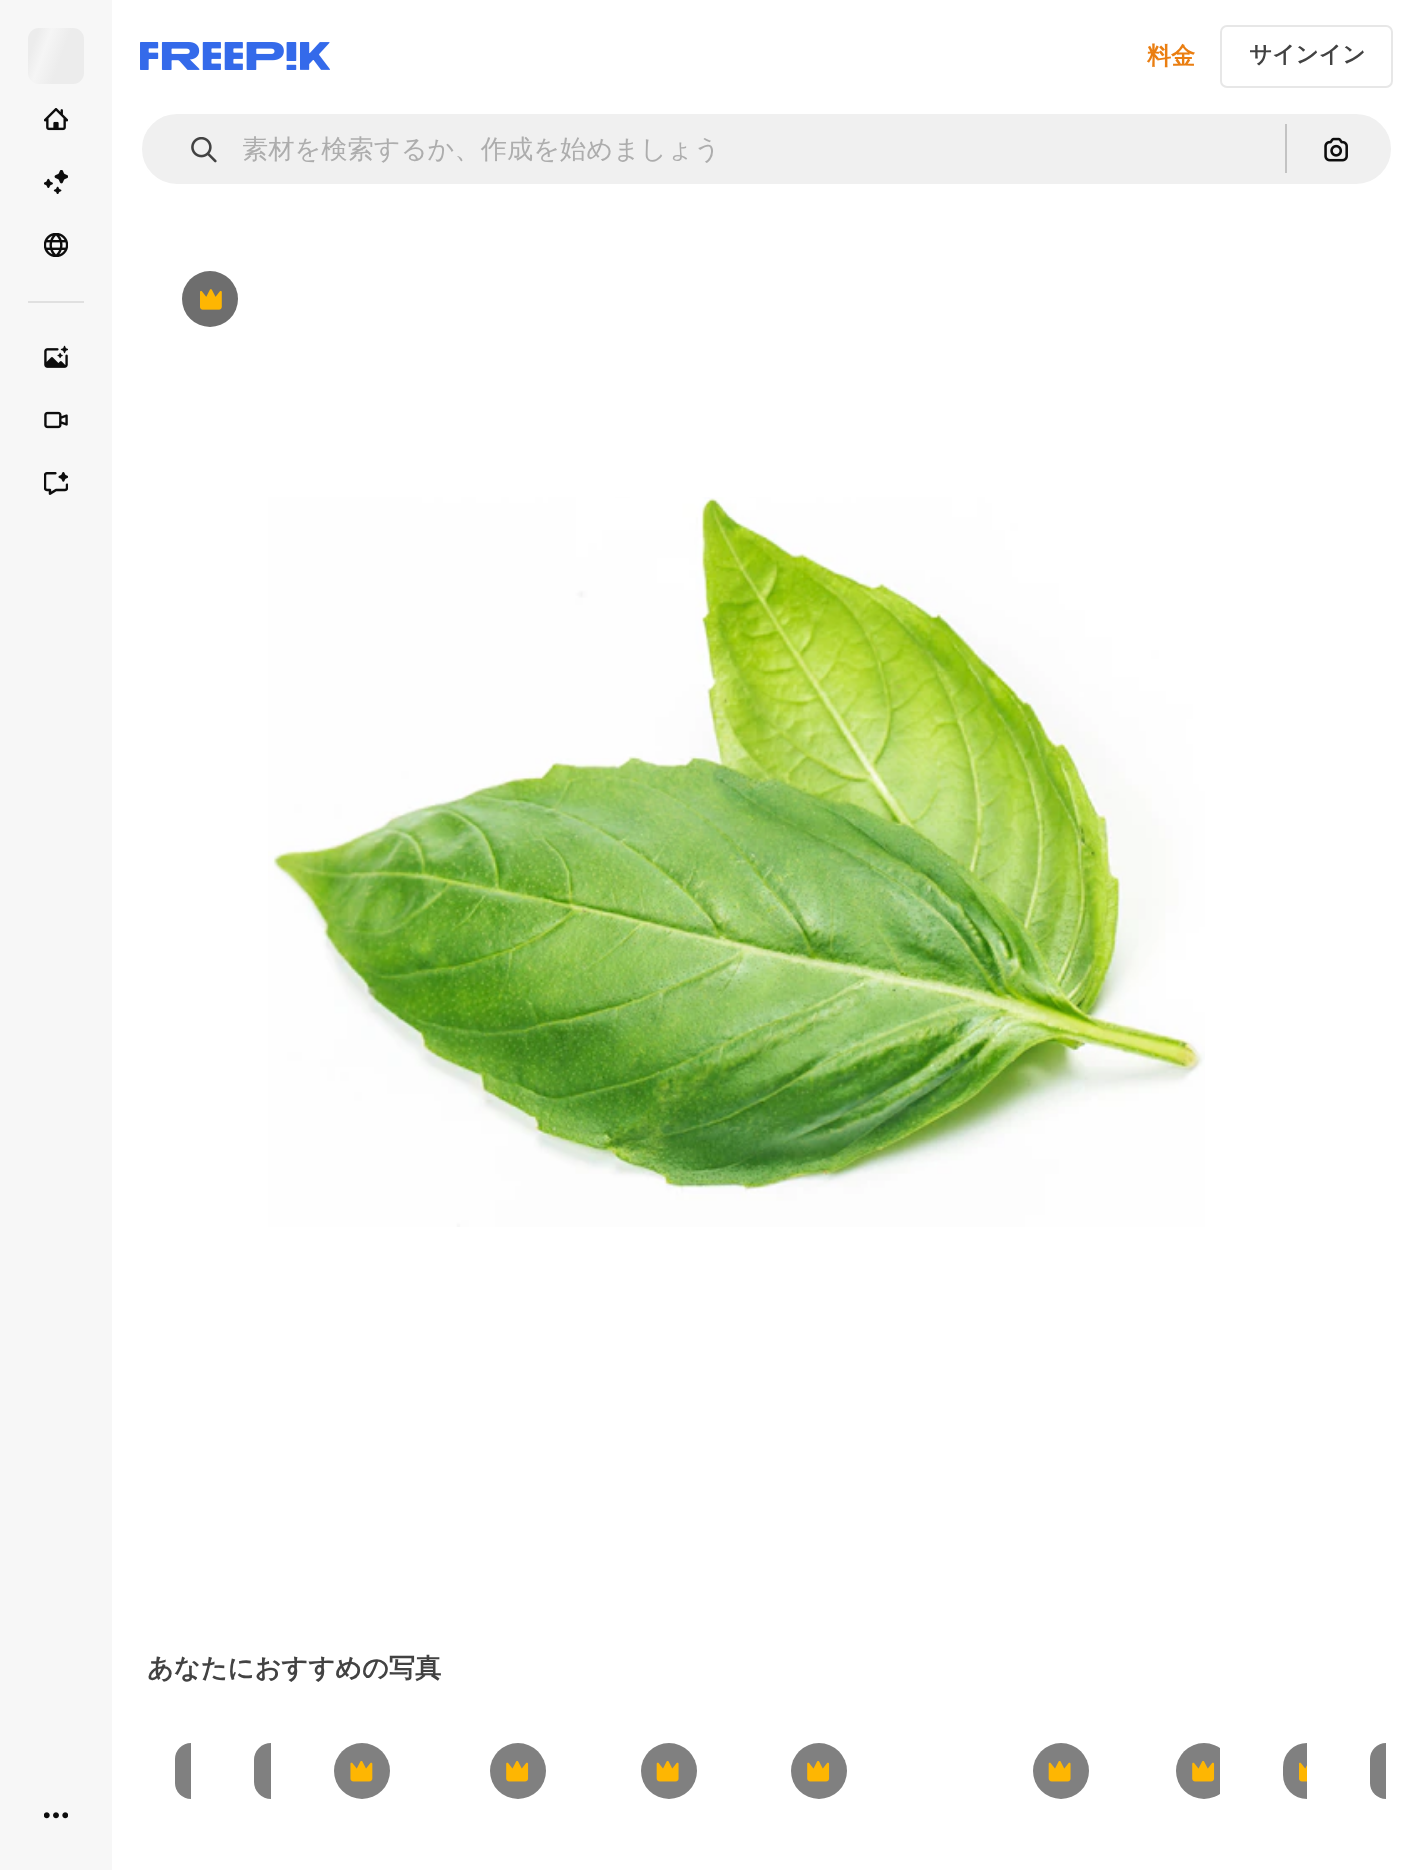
<!DOCTYPE html>
<meta charset="utf-8">
<style>body { margin: 0 } canvas { display: block }</style>
<canvas id="canvas" width="1421" height="1870"></canvas>
<script type="module">
  const canvas = document.getElementById("canvas");
  const g = canvas.getContext("2d");
  g.miterLimit = 4;
  g.fontKerning = "normal";
  function drawText(s, x, y, [font, color]) {
    g.font = font;
    g.fillStyle = color;
    g.fillText(s, x, y);
  }
  function fillBox(x, y, w, h, color) {
    g.fillStyle = color;
    g.fillRect(x, y, w, h);
  }
  async function drawPicture(src, x, y, w, h) {
    const img = new Image();
    img.src = src;
    await img.decode();
    g.drawImage(img, x, y, w, h);
  }
  let gradient;

  const s1 = ["bold 24px WenQuanYi Zen Hei", "#EA7E11"];
  const s2 = ["bold 22.75px WenQuanYi Zen Hei", "#424242"];
  const s3 = ["500 26.25px WenQuanYi Zen Hei", "#ADADAD"];
  const s4 = ["bold 26.25px WenQuanYi Zen Hei", "#424242"];

  fillBox(0, 0, 1421, 1870, "#FFFFFF");
  fillBox(0, 0, 112, 1870, "#F7F7F7");
  gradient = g.createLinearGradient(26, 35, 142, 77);
  gradient.addColorStop(0.08, "#ECECEC");
  gradient.addColorStop(0.18, "#F5F5F5");
  gradient.addColorStop(0.33, "#ECECEC");
  g.fillStyle = gradient;
  g.beginPath();
  g.roundRect(28, 28, 56, 56, 11);
  g.fill();
  await drawPicture("pic1.png", 44, 108, 24, 23);
  await drawPicture("pic2.png", 44, 170, 24, 24);
  await drawPicture("pic3.png", 44, 233, 24, 24);
  fillBox(28, 301, 56, 2, "#E0E0E0");
  await drawPicture("pic4.png", 44, 345, 24, 23);
  await drawPicture("pic5.png", 44, 411, 24, 18);
  await drawPicture("pic6.png", 44, 472, 24, 23);
  await drawPicture("pic7.png", 44, 1812, 24, 7);
  await drawPicture("pic8.png", 140, 42, 190, 28);
  drawText("料金", 1147, 64, s1);
  g.beginPath();
  g.roundRect(1221, 26, 171, 61, 6);
  g.strokeStyle = "#E7E7E7";
  g.lineWidth = 2;
  g.stroke();
  drawText("サインイン", 1249, 62, s2);
  g.fillStyle = "#F0F0F0";
  g.beginPath();
  g.roundRect(141, 113, 1251, 72, 36);
  g.fill();
  g.strokeStyle = "#FFFFFF";
  g.stroke();
  await drawPicture("pic9.png", 191, 137, 26, 26);
  drawText("素材を検索するか、作成を始めましょう", 242, 158, s3);
  fillBox(1285, 124, 2, 49, "#C3C3C3");
  await drawPicture("pic10.png", 1324, 137, 24, 25);
  g.fillStyle = "#6E6E6E";
  g.beginPath();
  g.arc(210, 299, 28, 0, Math.PI * 2);
  g.fill();
  await drawPicture("pic11.png", 200, 289, 22, 21);
  await drawPicture("pic12.png", 268, 497, 937, 730);
  drawText("あなたにおすすめの写真", 147, 1677, s4);
  g.fillStyle = "#808080";
  g.beginPath();
  g.roundRect(175, 1743, 16, 56, [28, 0, 0, 28]);
  g.fill();
  g.beginPath();
  g.roundRect(254, 1743, 17, 56, [28, 0, 0, 28]);
  g.fill();
  g.beginPath();
  g.arc(362, 1771, 28, 0, Math.PI * 2);
  g.fill();
  await drawPicture("pic13.png", 350, 1761, 23, 21);
  g.beginPath();
  g.arc(518, 1771, 28, 0, Math.PI * 2);
  g.fill();
  await drawPicture("pic14.png", 506, 1761, 23, 21);
  g.beginPath();
  g.arc(669, 1771, 28, 0, Math.PI * 2);
  g.fill();
  await drawPicture("pic15.png", 656, 1761, 23, 21);
  g.beginPath();
  g.arc(819, 1771, 28, 0, Math.PI * 2);
  g.fill();
  await drawPicture("pic14.png", 807, 1761, 23, 21);
  g.beginPath();
  g.arc(1061, 1771, 28, 0, Math.PI * 2);
  g.fill();
  await drawPicture("pic15.png", 1048, 1761, 23, 21);
  g.save();
  g.beginPath();
  g.roundRect(1148, 1715, 72, 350, 28);
  g.clip();
  g.beginPath();
  g.arc(1204, 1771, 28, 0, Math.PI * 2);
  g.fill();
  g.restore();
  await drawPicture("pic14.png", 1192, 1761, 23, 21);
  g.beginPath();
  g.roundRect(1283, 1743, 24, 56, [28, 0, 0, 28]);
  g.fill();
  await drawPicture("pic16.png", 1299, 1762, 8, 20);
  g.beginPath();
  g.roundRect(1370, 1743, 16, 56, [28, 0, 0, 28]);
  g.fill();
</script>
